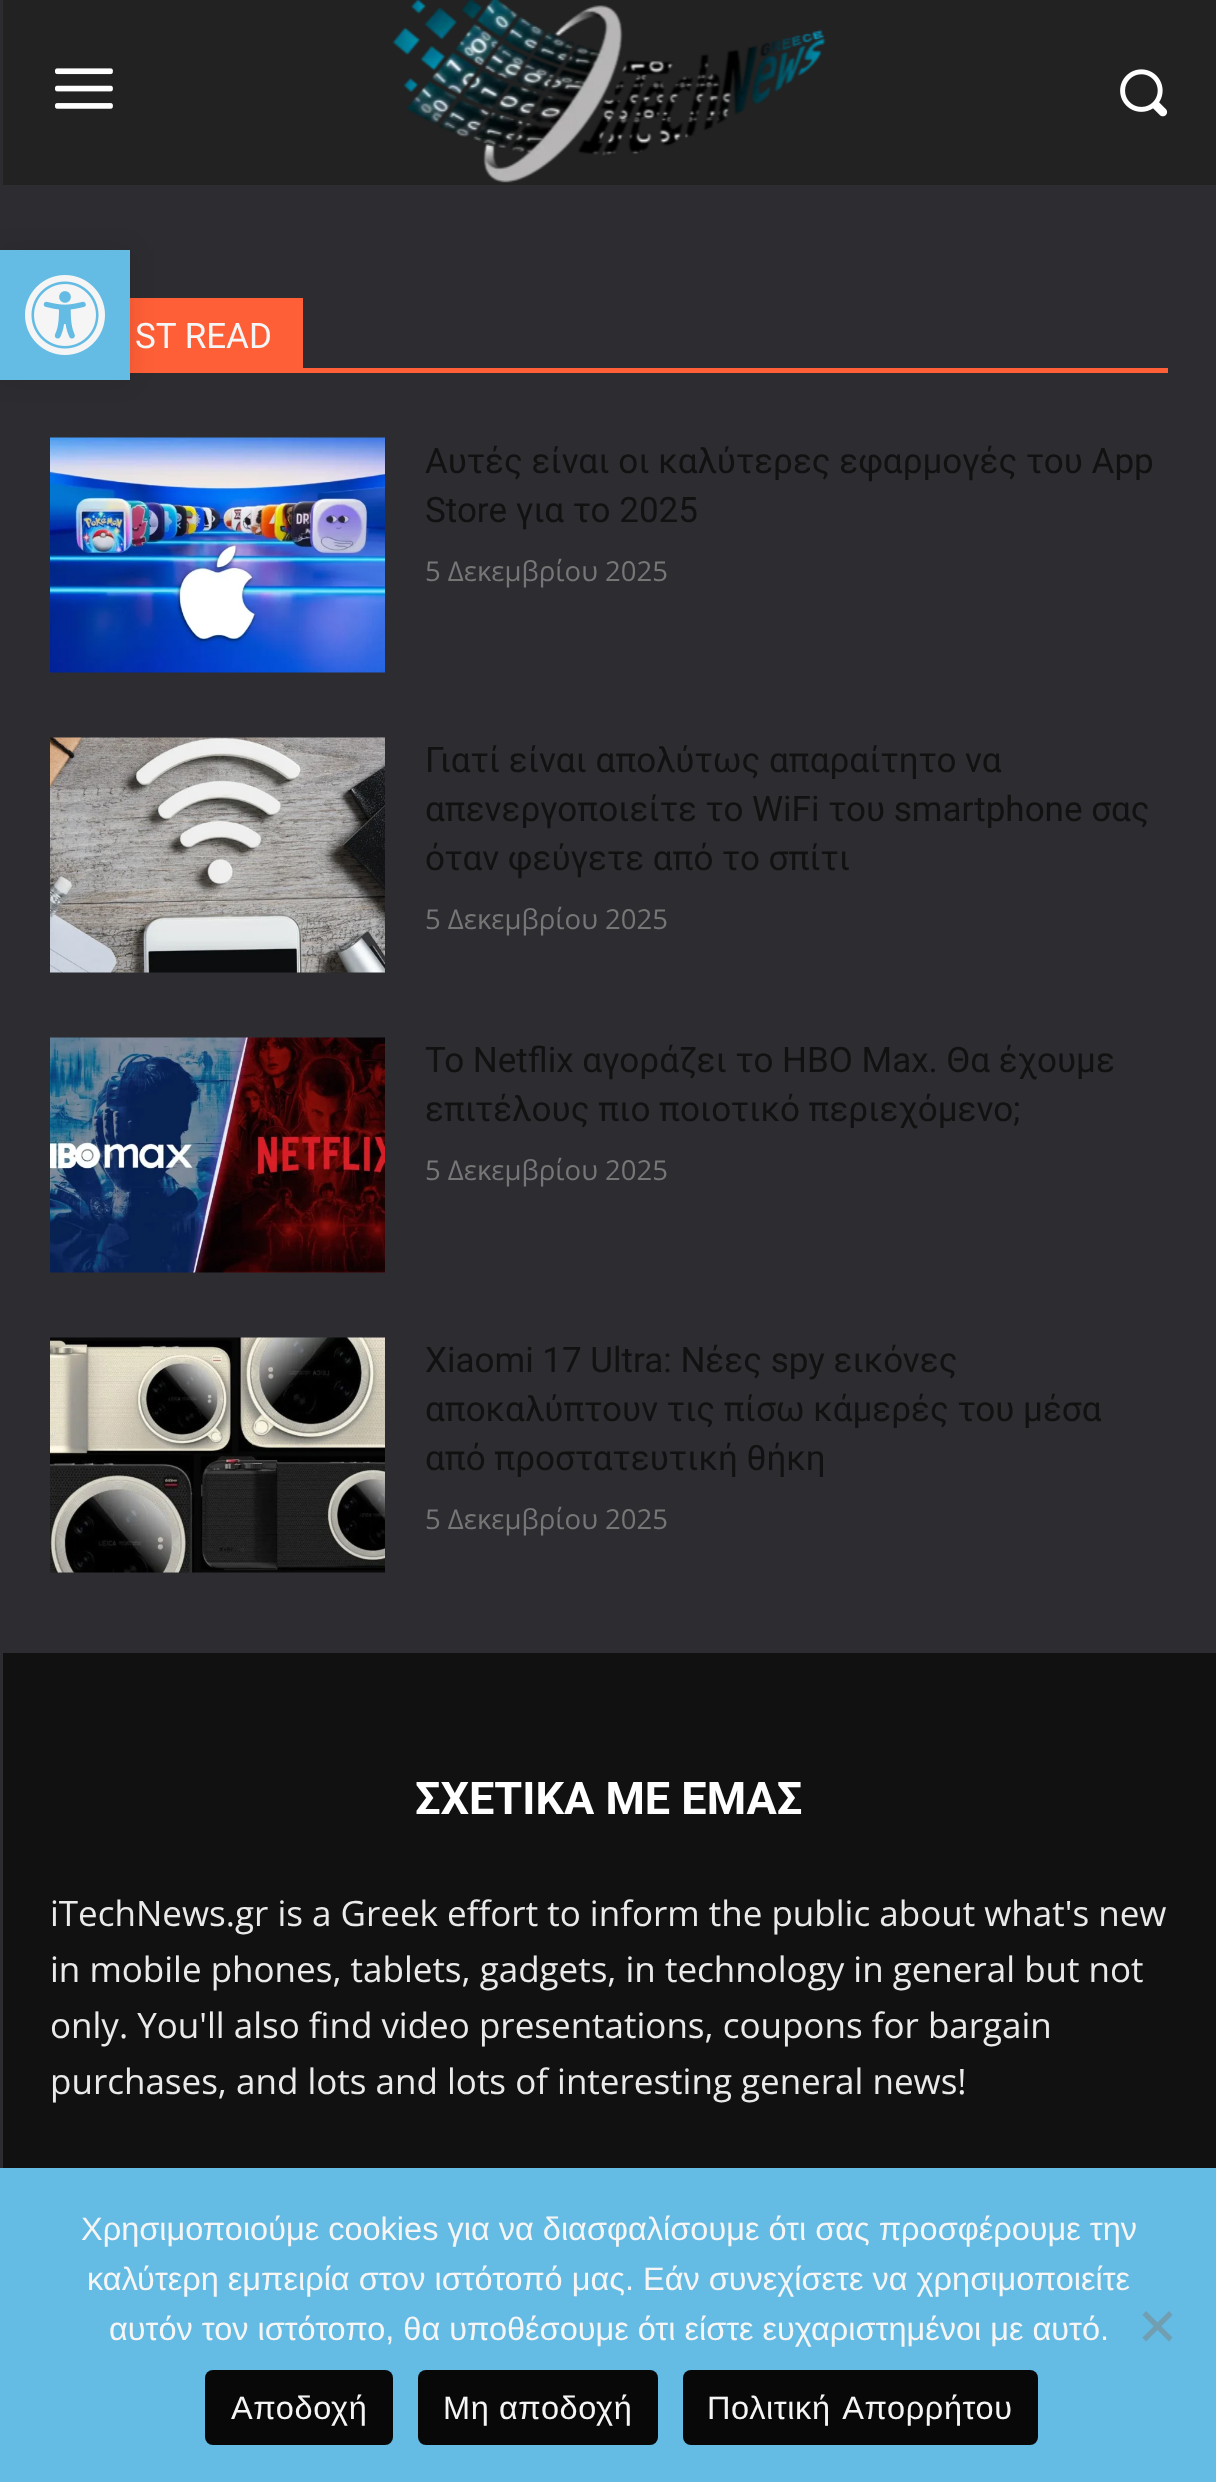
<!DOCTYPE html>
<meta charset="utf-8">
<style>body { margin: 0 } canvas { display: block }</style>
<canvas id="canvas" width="1216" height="2482"></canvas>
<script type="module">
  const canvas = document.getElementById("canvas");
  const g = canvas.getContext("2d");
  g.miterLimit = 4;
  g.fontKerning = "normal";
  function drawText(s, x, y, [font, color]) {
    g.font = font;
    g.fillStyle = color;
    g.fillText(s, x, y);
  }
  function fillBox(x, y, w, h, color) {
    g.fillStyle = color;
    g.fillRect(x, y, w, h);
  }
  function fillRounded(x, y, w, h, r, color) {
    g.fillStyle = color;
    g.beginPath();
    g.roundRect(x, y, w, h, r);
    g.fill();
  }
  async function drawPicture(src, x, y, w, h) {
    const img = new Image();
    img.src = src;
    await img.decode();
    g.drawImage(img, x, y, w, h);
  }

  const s1 = ["35px Roboto", "#F5F5F5"];
  const s2 = ["35px Roboto", "#111111"];
  const s3 = ["27.5px Open Sans", "#767676"];
  const s4 = ["bold 45px Roboto", "#FFFFFF"];
  const s5 = ["35px Open Sans", "#EAEAEA"];
  const s6 = ["32.5px Liberation Sans", "#F5F5F5"];

  fillBox(0, 0, 1216, 2482, "#2D2D31");
  fillBox(130, 368, 1038, 5, "#FE5F37");
  fillBox(130, 298, 173, 70, "#FE5F37");
  g.fillStyle = "rgba(0, 0, 0, 0.1)";
  g.filter = "blur(12.5px)";
  g.beginPath();
  g.rect(0, 250, 130, 130);
  g.fill();
  g.filter = "none";
  fillBox(0, 250, 130, 130, "#64BBE3");
  await drawPicture("pic1.png", 25, 275, 80, 80);
  fillBox(3, 0, 1213, 185, "#222222");
  await drawPicture("pic2.png", 55, 68, 58, 41);
  await drawPicture("pic3.png", 392, 0, 434, 183);
  await drawPicture("pic4.png", 1120, 69, 48, 48);
  drawText("ST READ", 135, 348, s1);
  await drawPicture("pic5.png", 50, 437, 335, 236);
  drawText("Αυτές είναι οι καλύτερες εφαρμογές του App", 425, 473, s2);
  drawText("Store για το 2025", 425, 522, s2);
  drawText("5 Δεκεμβρίου 2025", 425, 581, s3);
  await drawPicture("pic6.png", 50, 737, 335, 236);
  drawText("Γιατί είναι απολύτως απαραίτητο να", 425, 772, s2);
  drawText("απενεργοποιείτε το WiFi του smartphone σας", 425, 821, s2);
  drawText("όταν φεύγετε από το σπίτι", 425, 870, s2);
  drawText("5 Δεκεμβρίου 2025", 425, 929, s3);
  await drawPicture("pic7.png", 50, 1037, 335, 236);
  drawText("Το Netflix αγοράζει το HBO Max. Θα έχουμε", 425, 1072, s2);
  drawText("επιτέλους πιο ποιοτικό περιεχόμενο;", 425, 1121, s2);
  drawText("5 Δεκεμβρίου 2025", 425, 1180, s3);
  await drawPicture("pic8.png", 50, 1337, 335, 236);
  drawText("Xiaomi 17 Ultra: Νέες spy εικόνες", 425, 1372, s2);
  drawText("αποκαλύπτουν τις πίσω κάμερές του μέσα", 425, 1421, s2);
  drawText("από προστατευτική θήκη", 425, 1470, s2);
  drawText("5 Δεκεμβρίου 2025", 425, 1529, s3);
  fillBox(3, 1653, 1213, 515, "#111111");
  drawText("ΣΧΕΤΙΚΑ ΜΕ ΕΜΑΣ", 415, 1814, s4);
  drawText("iTechNews.gr is a Greek effort to inform the public about what's new", 50, 1926, s5);
  drawText("in mobile phones, tablets, gadgets, in technology in general but not", 50, 1982, s5);
  drawText("only. You'll also find video presentations, coupons for bargain", 50, 2038, s5);
  drawText("purchases, and lots and lots of interesting general news!", 50, 2094, s5);
  fillBox(0, 2168, 1216, 314, "#64BBE3");
  drawText("Χρησιμοποιούμε cookies για να διασφαλίσουμε ότι σας προσφέρουμε την", 81, 2240, s6);
  drawText("καλύτερη εμπειρία στον ιστότοπό μας. Εάν συνεχίσετε να χρησιμοποιείτε", 87, 2290, s6);
  drawText("αυτόν τον ιστότοπο, θα υποθέσουμε ότι είστε ευχαριστημένοι με αυτό.", 109, 2340, s6);
  g.fillStyle = "#729EB2";
  g.beginPath();
  g.moveTo(1169, 2311);
  g.lineTo(1172.5, 2315);
  g.lineTo(1146, 2341.5);
  g.lineTo(1142.5, 2337.5);
  g.closePath();
  g.fill();
  g.beginPath();
  g.moveTo(1142.5, 2315);
  g.lineTo(1146, 2311);
  g.lineTo(1172.5, 2337.5);
  g.lineTo(1169, 2341.5);
  g.closePath();
  g.fill();
  fillRounded(205, 2370, 188, 75, 8, "#080808");
  g.letterSpacing = "0.6px";
  drawText("Αποδοχή", 231, 2419, s6);
  fillRounded(418, 2370, 240, 75, 8, "#080808");
  drawText("Μη αποδοχή", 443, 2419, s6);
  fillRounded(683, 2370, 355, 75, 8, "#080808");
  g.wordSpacing = "2px";
  drawText("Πολιτική Aπορρήτου", 707, 2419, s6);
</script>
